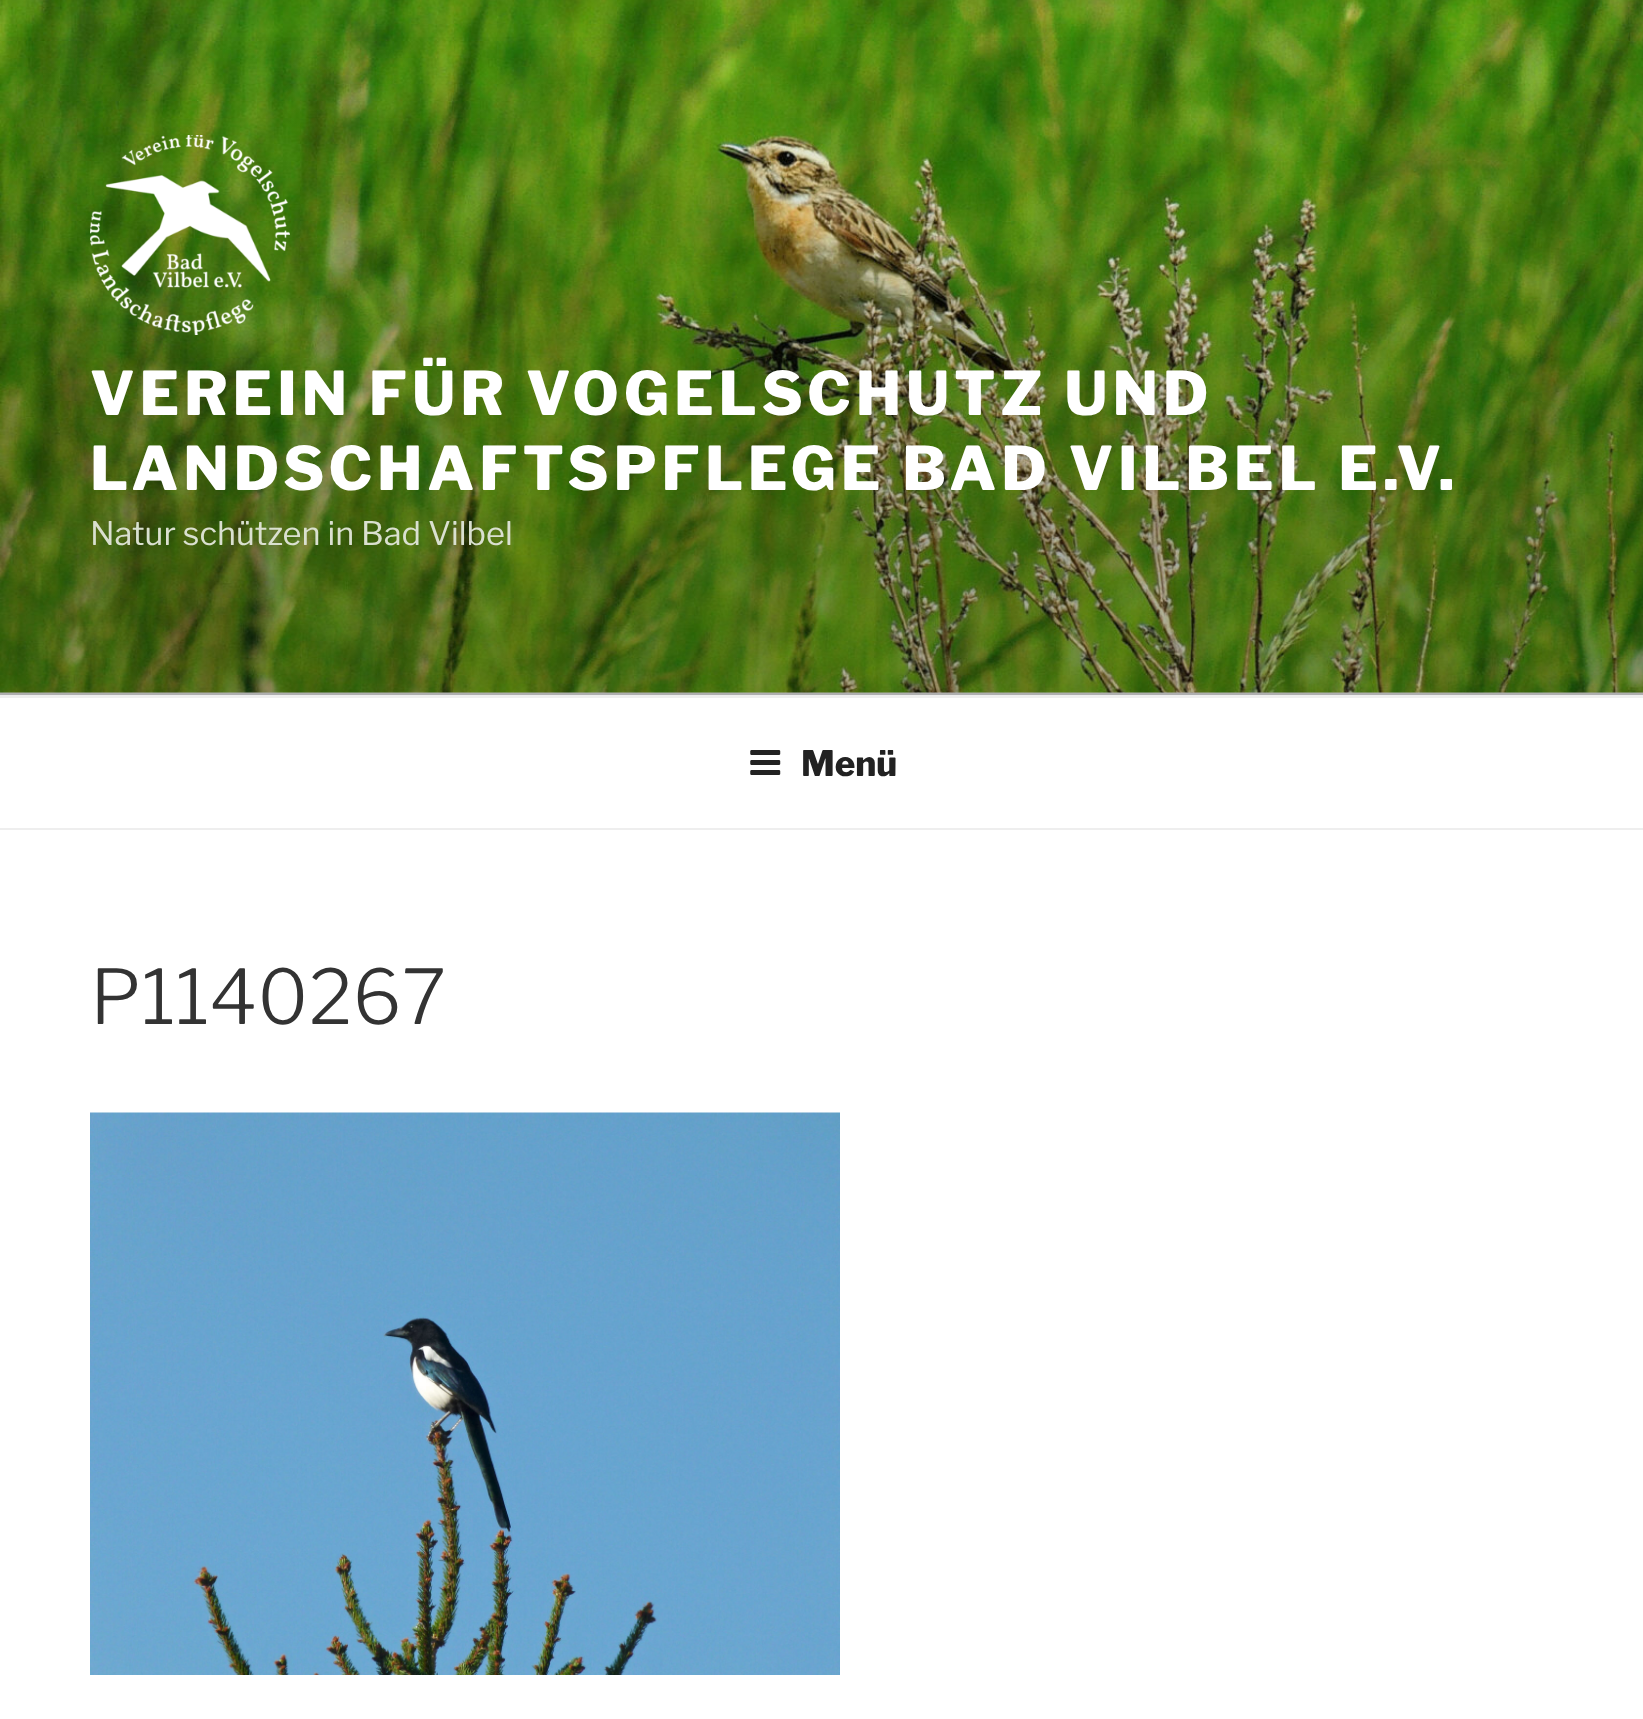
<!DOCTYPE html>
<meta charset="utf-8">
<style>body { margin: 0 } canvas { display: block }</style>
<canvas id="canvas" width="1643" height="1719"></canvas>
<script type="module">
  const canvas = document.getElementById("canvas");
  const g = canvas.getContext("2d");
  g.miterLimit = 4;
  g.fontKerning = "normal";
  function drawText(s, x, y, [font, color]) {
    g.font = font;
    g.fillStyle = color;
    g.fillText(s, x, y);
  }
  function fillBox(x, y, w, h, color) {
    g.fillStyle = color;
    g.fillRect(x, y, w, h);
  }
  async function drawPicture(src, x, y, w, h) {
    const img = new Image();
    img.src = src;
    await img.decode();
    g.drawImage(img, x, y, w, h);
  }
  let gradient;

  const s1 = ["100 60px Libre Franklin", "#FFFFFF"];
  const s2 = ["100 32.5px 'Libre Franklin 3'", "#DAE0D0"];
  const s3 = ["100 35px Libre Franklin", "#222222"];
  const s4 = ["100 75px 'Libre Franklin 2'", "#333333"];

  fillBox(0, 0, 1643, 1719, "#FAFAFA");
  await drawPicture("pic1.png", 0, 0, 1643, 693);
  gradient = g.createLinearGradient(823, 0, 823, 695);
  gradient.addColorStop(0, "rgba(0, 0, 0, 0)");
  gradient.addColorStop(0.75, "rgba(0, 0, 0, 0.3)");
  gradient.addColorStop(1, "rgba(0, 0, 0, 0.3)");
  g.fillStyle = gradient;
  g.fillRect(0, 37, 1643, 658);
  await drawPicture("pic2.png", 90, 135, 200, 200);
  g.letterSpacing = "4.8px";
  drawText("VEREIN FÜR VOGELSCHUTZ UND", 90, 415, s1);
  drawText("LANDSCHAFTSPFLEGE BAD VILBEL E.V.", 90, 490, s1);
  g.letterSpacing = "0px";
  drawText("Natur schützen in Bad Vilbel", 90, 545, s2);
  fillBox(0, 698, 1643, 130, "#FFFFFF");
  fillBox(0, 695, 1643, 3, "#EEEEEE");
  fillBox(0, 828, 1643, 2, "#EEEEEE");
  await drawPicture("pic3.png", 750, 750, 31, 25);
  drawText("Menü", 801, 776, s3);
  fillBox(0, 830, 1643, 889, "#FFFFFF");
  drawText("P1140267", 90, 1024, s4);
  await drawPicture("pic4.png", 90, 1112, 750, 563);
</script>
